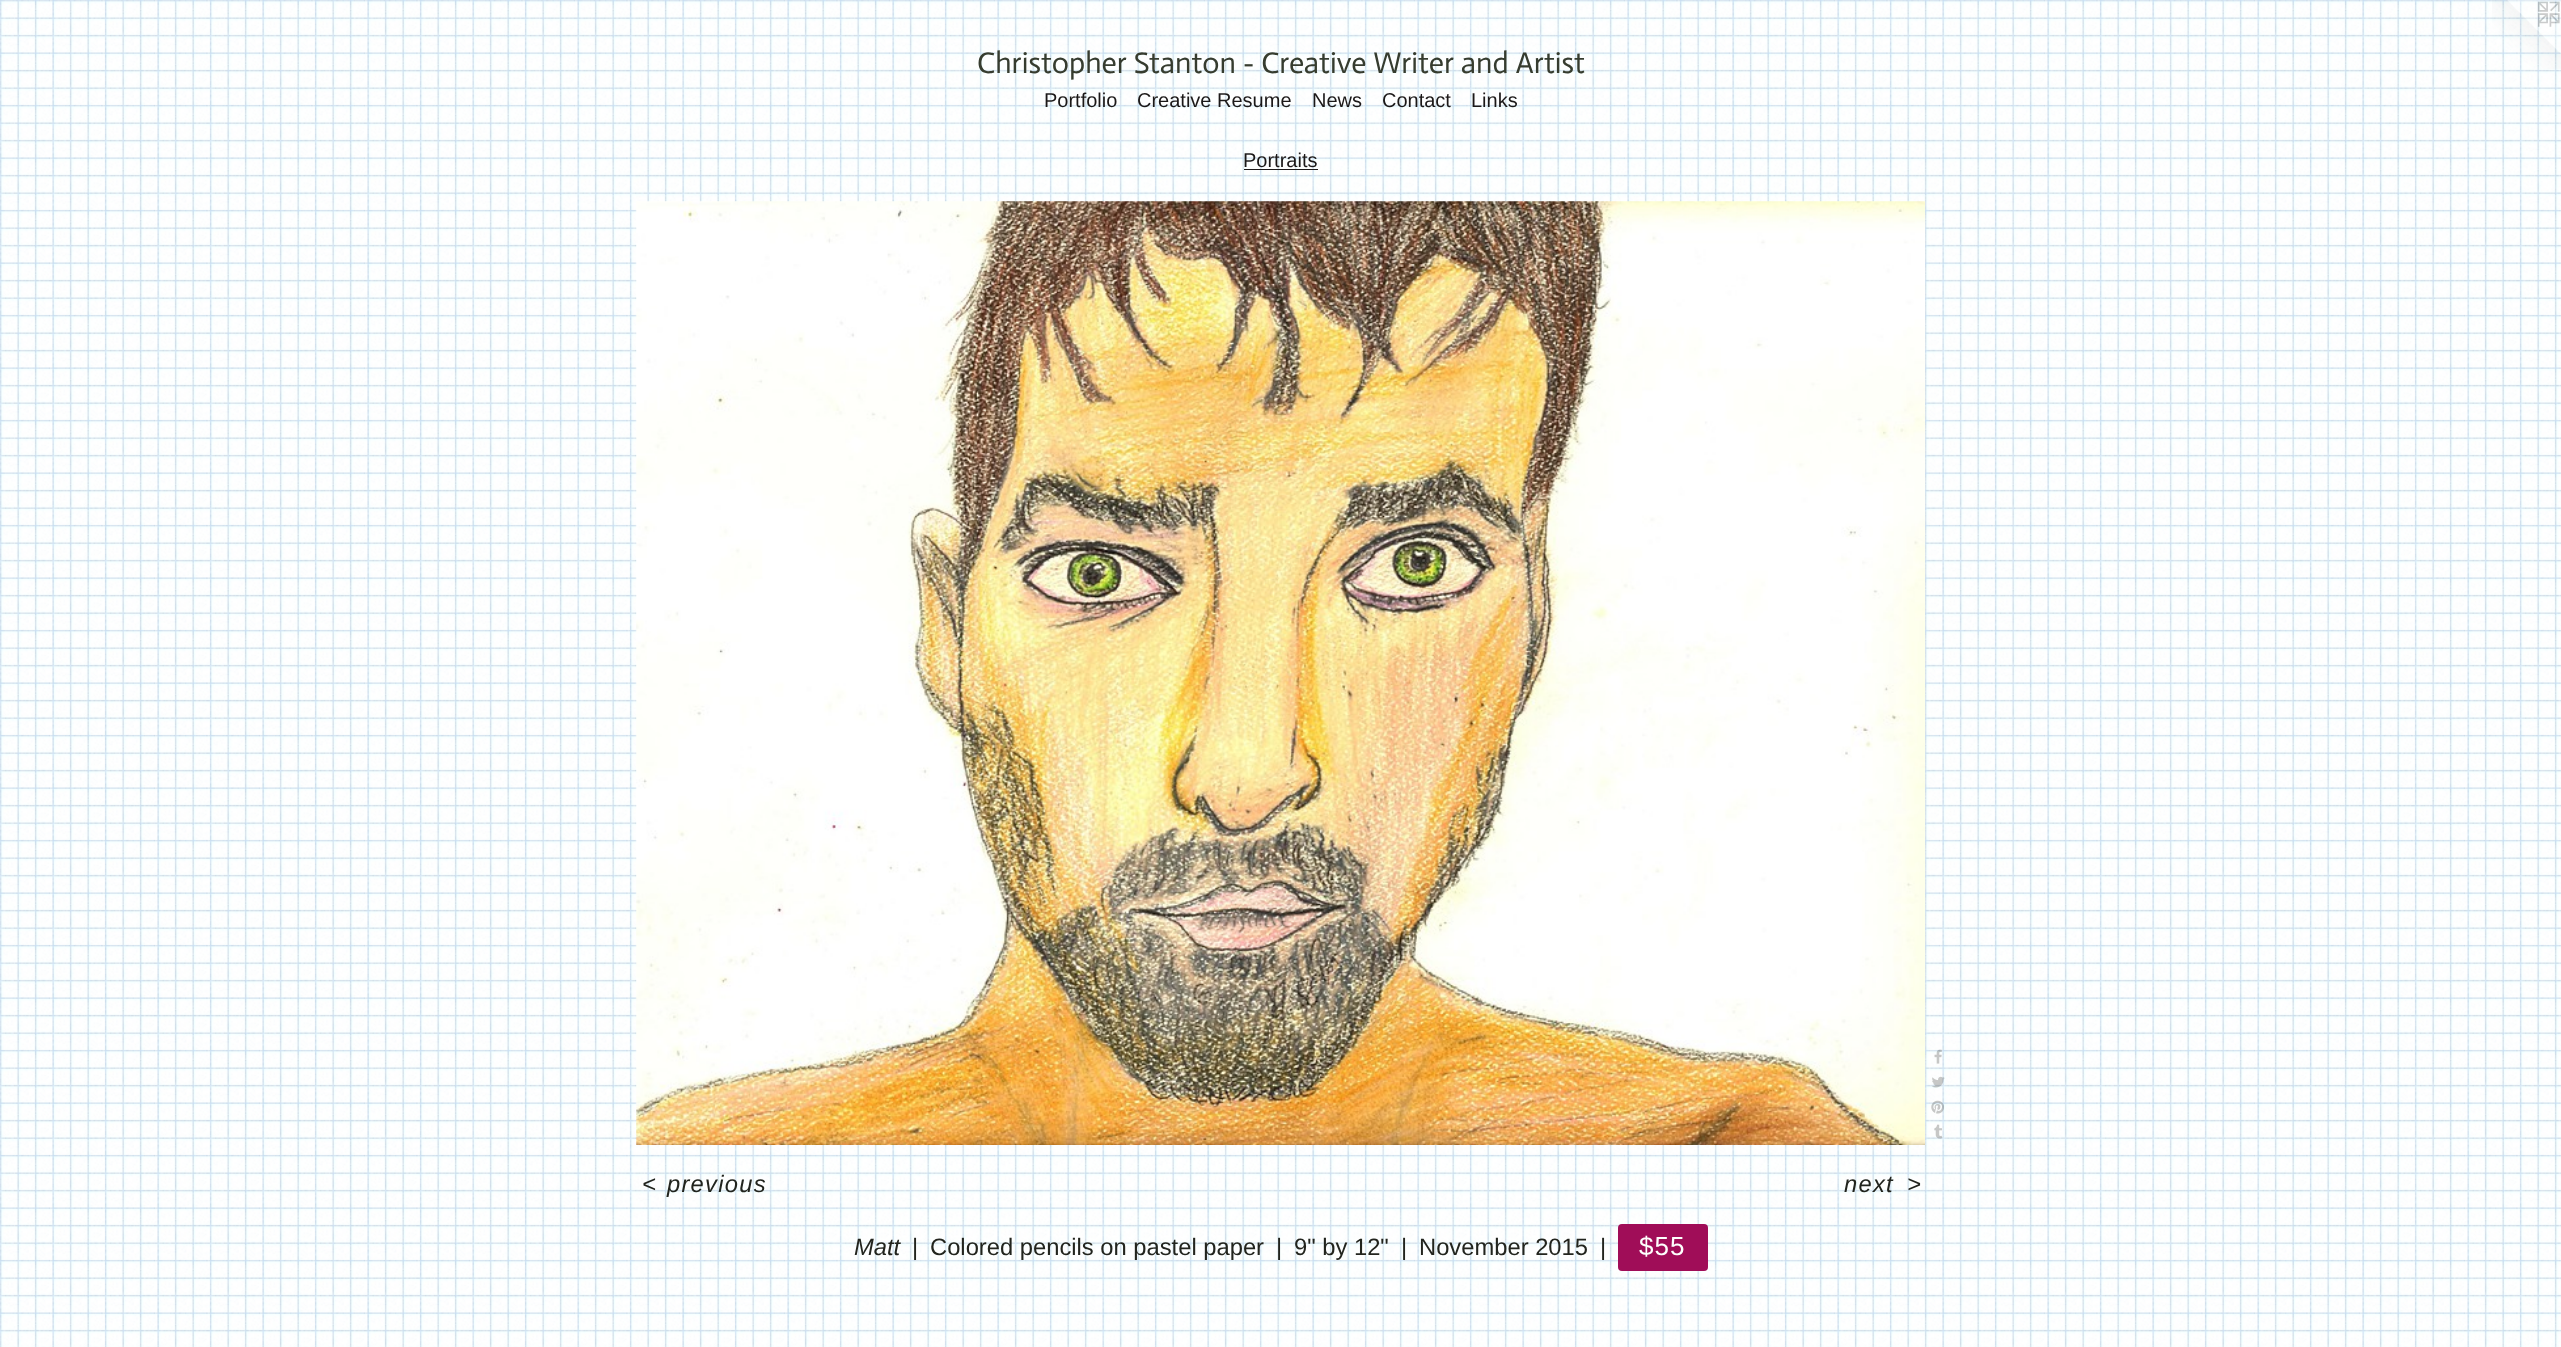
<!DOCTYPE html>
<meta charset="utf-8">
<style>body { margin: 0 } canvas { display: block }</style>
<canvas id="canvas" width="2561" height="1347"></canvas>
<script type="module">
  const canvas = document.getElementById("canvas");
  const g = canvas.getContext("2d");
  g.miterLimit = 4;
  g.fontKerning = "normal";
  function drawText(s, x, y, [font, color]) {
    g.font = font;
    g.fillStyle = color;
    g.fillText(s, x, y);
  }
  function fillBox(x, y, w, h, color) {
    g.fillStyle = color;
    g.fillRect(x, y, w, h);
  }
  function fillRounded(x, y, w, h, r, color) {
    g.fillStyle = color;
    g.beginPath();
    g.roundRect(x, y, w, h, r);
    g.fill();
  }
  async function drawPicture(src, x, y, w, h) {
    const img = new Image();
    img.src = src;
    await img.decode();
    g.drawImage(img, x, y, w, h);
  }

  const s1 = ["30px Actor", "#363C2F"];
  const s2 = ["20px Liberation Sans", "#1B1818"];
  const s3 = ["italic 23.75px Liberation Sans", "#22241E"];
  const s4 = ["23.75px Liberation Sans", "#22241E"];
  const s5 = ["26px Liberation Sans", "#FEFFFD"];

  fillBox(0, 0, 2561, 1347, "#FFFFFF");
  await drawPicture("pic1.png", 0, 0, 2561, 1347);
  drawText("Christopher Stanton - Creative Writer and Artist", 977, 73, s1);
  await drawPicture("pic2.png", 2492, 0, 69, 69);
  drawText("Portfolio", 1044, 107, s2);
  drawText("Creative Resume", 1137, 107, s2);
  drawText("News", 1312, 107, s2);
  drawText("Contact", 1382, 107, s2);
  drawText("Links", 1471, 107, s2);
  drawText("Portraits", 1243, 167, s2);
  fillBox(1244, 169, 74, 1, "#1B1818");
  await drawPicture("pic3.png", 636, 201, 1289, 944);
  await drawPicture("pic4.png", 1934, 1049, 8, 15);
  await drawPicture("pic5.png", 1932, 1076, 13, 12);
  await drawPicture("pic6.png", 1931, 1100, 13, 14);
  await drawPicture("pic7.png", 1934, 1124, 9, 15);
  g.letterSpacing = "1.25px";
  drawText("<", 642, 1192, s3);
  drawText("previous", 667, 1192, s3);
  drawText("next", 1844, 1192, s3);
  drawText(">", 1907, 1192, s3);
  g.letterSpacing = "0px";
  drawText("Matt", 854, 1255, s3);
  drawText("|", 912, 1255, s4);
  drawText("Colored pencils on pastel paper", 930, 1255, s4);
  drawText("|", 1276, 1255, s4);
  drawText("9\" by 12\"", 1294, 1255, s4);
  drawText("|", 1401, 1255, s4);
  drawText("November 2015", 1419, 1255, s4);
  drawText("|", 1600, 1255, s4);
  fillRounded(1618, 1224, 90, 47, 4, "#A00D58");
  g.letterSpacing = "1px";
  drawText("$55", 1639, 1255, s5);
</script>
